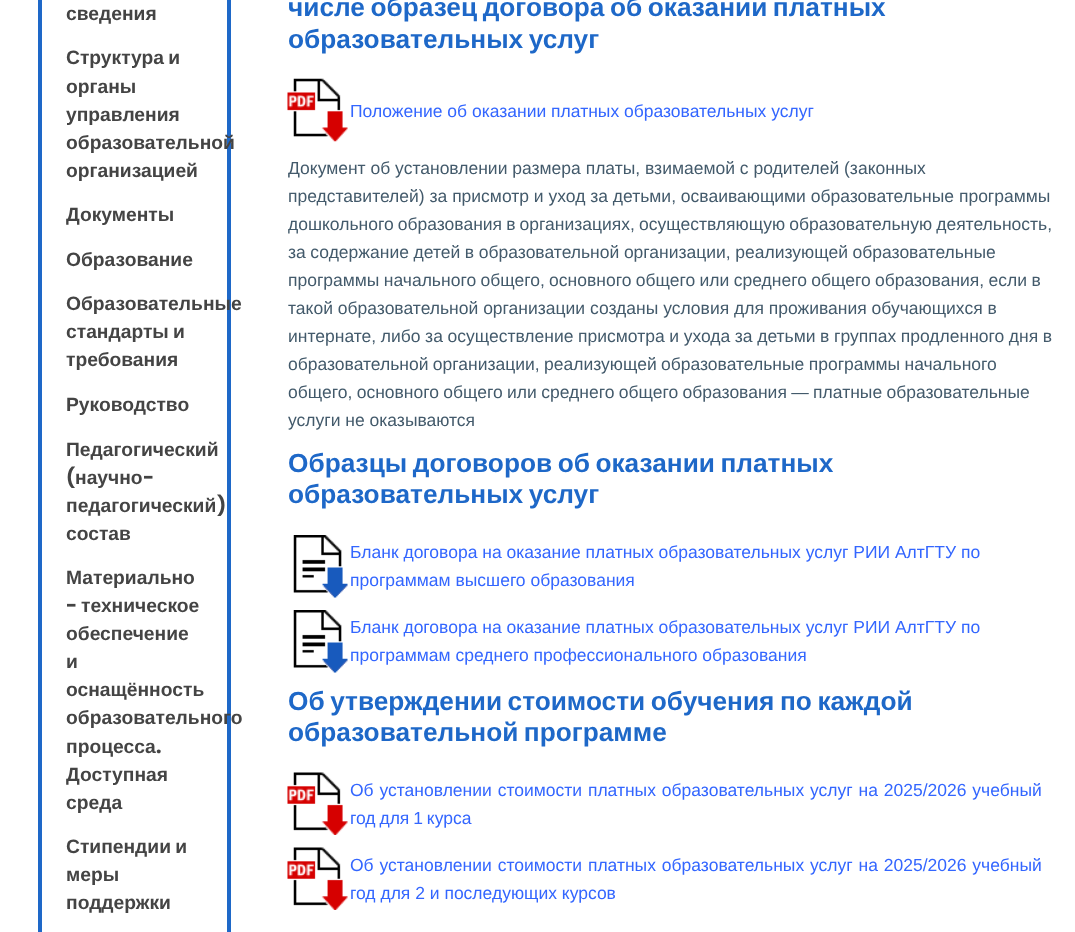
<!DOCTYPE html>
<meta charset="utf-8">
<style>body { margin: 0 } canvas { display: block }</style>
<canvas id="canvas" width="1075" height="932"></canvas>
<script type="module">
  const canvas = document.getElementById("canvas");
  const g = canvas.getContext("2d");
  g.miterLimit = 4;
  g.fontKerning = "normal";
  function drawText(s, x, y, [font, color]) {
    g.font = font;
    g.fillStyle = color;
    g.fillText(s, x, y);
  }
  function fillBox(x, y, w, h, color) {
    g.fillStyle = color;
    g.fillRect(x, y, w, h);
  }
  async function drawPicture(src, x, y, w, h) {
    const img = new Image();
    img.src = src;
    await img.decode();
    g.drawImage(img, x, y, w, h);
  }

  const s1 = ["bold 19.25px Liberation Sans", "#444444"];
  const s2 = ["bold 19.25px Poppins", "#444444"];
  const s3 = ["bold 26.25px Liberation Sans", "#1E68C8"];
  const s4 = ["17.5px Liberation Sans", "#3366FF"];
  const s5 = ["17.5px Liberation Sans", "#435A6B"];

  fillBox(0, 0, 1075, 932, "#FFFFFF");
  g.strokeStyle = "#1E68C8";
  g.lineWidth = 4;
  g.strokeRect(40, -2, 189, 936);
  drawText("сведения", 66, 20, s1);
  g.wordSpacing = "-1px";
  drawText("Структура и", 66, 64, s1);
  g.wordSpacing = "0px";
  drawText("органы", 66, 93, s1);
  drawText("управления", 66, 121, s1);
  drawText("образовательной", 66, 149, s1);
  drawText("организацией", 66, 177, s1);
  drawText("Документы", 66, 221, s1);
  drawText("Образование", 66, 266, s1);
  drawText("Образовательные", 66, 310, s1);
  g.wordSpacing = "-1px";
  drawText("стандарты и", 66, 338, s1);
  g.wordSpacing = "0px";
  drawText("требования", 66, 366, s1);
  drawText("Руководство", 66, 411, s1);
  drawText("Педагогический", 66, 456, s1);
  drawText("(", 66, 484, s2);
  drawText("научно", 75, 484, s1);
  drawText("-", 143, 484, s2);
  drawText("педагогический", 66, 512, s1);
  drawText(")", 217, 512, s2);
  drawText("состав", 66, 540, s1);
  drawText("Материально", 66, 584, s1);
  drawText("-", 66, 612, s2);
  drawText("техническое", 81, 612, s1);
  drawText("обеспечение", 66, 640, s1);
  drawText("и", 66, 668, s1);
  drawText("оснащённость", 66, 696, s1);
  drawText("образовательного", 66, 724, s1);
  drawText("процесса", 66, 753, s1);
  drawText(".", 156, 753, s2);
  drawText("Доступная", 66, 781, s1);
  drawText("среда", 66, 809, s1);
  g.wordSpacing = "-1px";
  drawText("Стипендии и", 66, 853, s1);
  g.wordSpacing = "0px";
  drawText("меры", 66, 881, s1);
  drawText("поддержки", 66, 909, s1);
  g.wordSpacing = "-1.75px";
  drawText("числе образец договора об оказании платных", 288, 16, s3);
  drawText("образовательных услуг", 288, 48, s3);
  await drawPicture("pic1.png", 287, 78, 61, 64);
  g.wordSpacing = "0px";
  drawText("Положение об оказании платных образовательных услуг", 350, 117, s4);
  drawText("Документ об установлении размера платы, взимаемой с родителей (законных", 288, 174, s5);
  drawText("представителей) за присмотр и уход за детьми, осваивающими образовательные программы", 288, 202, s5);
  g.wordSpacing = "-0.75px";
  drawText("дошкольного образования в организациях, осуществляющую образовательную деятельность,", 288, 230, s5);
  g.wordSpacing = "-0.25px";
  drawText("за содержание детей в образовательной организации, реализующей образовательные", 288, 258, s5);
  g.wordSpacing = "-0.5px";
  drawText("программы начального общего, основного общего или среднего общего образования, если в", 288, 286, s5);
  g.wordSpacing = "0px";
  drawText("такой образовательной организации созданы условия для проживания обучающихся в", 288, 314, s5);
  g.wordSpacing = "-0.25px";
  drawText("интернате, либо за осуществление присмотра и ухода за детьми в группах продленного дня в", 288, 342, s5);
  g.wordSpacing = "-0.5px";
  drawText("образовательной организации, реализующей образовательные программы начального", 288, 370, s5);
  drawText("общего, основного общего или среднего общего образования — платные образовательные", 288, 398, s5);
  g.wordSpacing = "0px";
  drawText("услуги не оказываются", 288, 426, s5);
  g.wordSpacing = "-1.75px";
  drawText("Образцы договоров об оказании платных", 288, 472, s3);
  drawText("образовательных услуг", 288, 503, s3);
  await drawPicture("pic2.png", 293, 535, 55, 63);
  g.wordSpacing = "0px";
  drawText("Бланк договора на оказание платных образовательных услуг РИИ АлтГТУ по", 350, 558, s4);
  drawText("программам высшего образования", 350, 586, s4);
  await drawPicture("pic2.png", 293, 610, 55, 63);
  drawText("Бланк договора на оказание платных образовательных услуг РИИ АлтГТУ по", 350, 633, s4);
  drawText("программам среднего профессионального образования", 350, 661, s4);
  g.wordSpacing = "-1.75px";
  drawText("Об утверждении стоимости обучения по каждой", 288, 710, s3);
  drawText("образовательной программе", 288, 741, s3);
  await drawPicture("pic3.png", 287, 772, 61, 63);
  g.wordSpacing = "1px";
  drawText("Об установлении стоимости платных образовательных услуг на 2025/2026 учебный", 350, 796, s4);
  g.wordSpacing = "-1px";
  drawText("год для 1 курса", 350, 824, s4);
  await drawPicture("pic3.png", 287, 847, 61, 63);
  g.wordSpacing = "1px";
  drawText("Об установлении стоимости платных образовательных услуг на 2025/2026 учебный", 350, 871, s4);
  g.wordSpacing = "0px";
  drawText("год для 2 и последующих курсов", 350, 899, s4);
</script>
